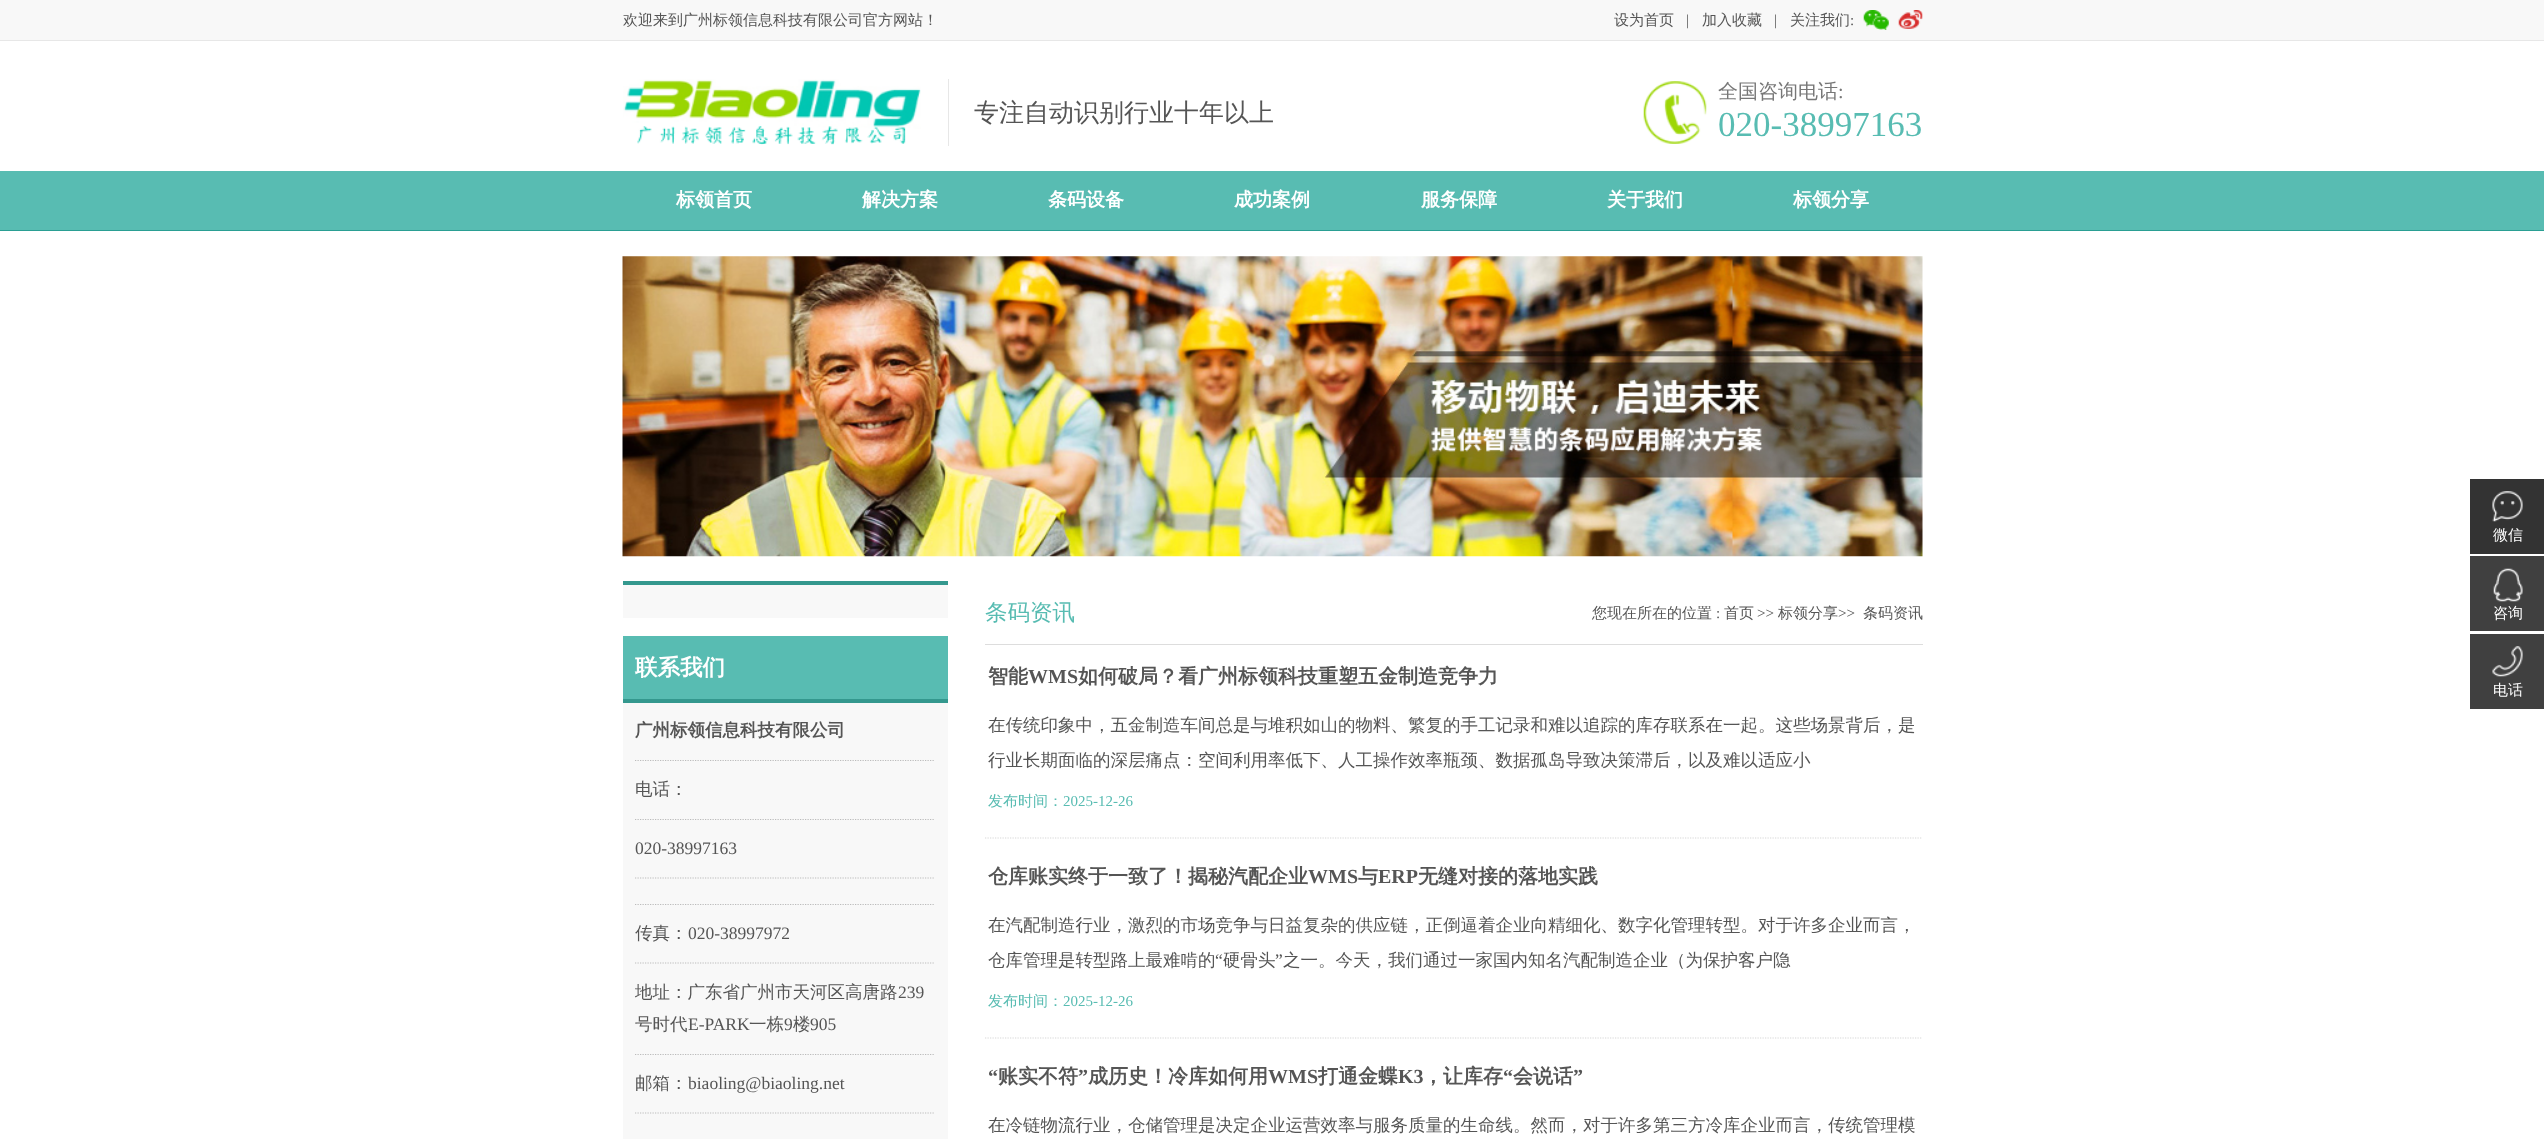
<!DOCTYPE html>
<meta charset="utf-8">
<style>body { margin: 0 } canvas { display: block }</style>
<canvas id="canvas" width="2544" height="1144"></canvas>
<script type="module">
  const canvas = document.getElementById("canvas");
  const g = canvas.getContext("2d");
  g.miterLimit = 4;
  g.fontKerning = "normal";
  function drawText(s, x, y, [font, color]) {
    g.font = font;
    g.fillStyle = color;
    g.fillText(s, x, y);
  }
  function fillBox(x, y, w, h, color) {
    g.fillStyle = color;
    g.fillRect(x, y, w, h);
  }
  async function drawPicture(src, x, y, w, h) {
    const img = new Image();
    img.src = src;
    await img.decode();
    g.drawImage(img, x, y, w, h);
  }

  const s1 = ["500 15px WenQuanYi Zen Hei", "#555555"];
  const s2 = ["15px Liberation Serif", "#555555"];
  const s3 = ["500 25px WenQuanYi Zen Hei", "#555555"];
  const s4 = ["500 20px WenQuanYi Zen Hei", "#777777"];
  const s5 = ["20px Liberation Serif", "#777777"];
  const s6 = ["35px Liberation Serif", "#58BCB2"];
  const s7 = ["bold 19px WenQuanYi Zen Hei", "#FFFFFF"];
  const s8 = ["bold 22.5px WenQuanYi Zen Hei", "#FFFFFF"];
  const s9 = ["bold 17.5px WenQuanYi Zen Hei", "#555555"];
  const s10 = ["500 17.5px WenQuanYi Zen Hei", "#555555"];
  const s11 = ["17.5px Liberation Serif", "#555555"];
  const s12 = ["500 22.5px WenQuanYi Zen Hei", "#58BCB2"];
  const s13 = ["bold 20px WenQuanYi Zen Hei", "#555555"];
  const s14 = ["bold 20px Liberation Serif", "#555555"];
  const s15 = ["500 15px WenQuanYi Zen Hei", "#58BCB2"];
  const s16 = ["15px Liberation Serif", "#58BCB2"];
  const s17 = ["500 15px WenQuanYi Zen Hei", "#FFFFFF"];

  fillBox(0, 0, 2544, 1144, "#FFFFFF");
  fillBox(0, 0, 2544, 40, "#F8F8F8");
  fillBox(0, 40, 2544, 1, "#E7E7E7");
  drawText("欢迎来到广州标领信息科技有限公司官方网站！", 623, 25, s1);
  drawText("设为首页", 1614, 25, s1);
  drawText("|", 1686, 25, s2);
  drawText("加入收藏", 1702, 25, s1);
  drawText("|", 1774, 25, s2);
  drawText("关注我们", 1790, 25, s1);
  drawText(":", 1850, 25, s2);
  await drawPicture("pic1.png", 1863, 10, 26, 20);
  await drawPicture("pic2.png", 1898, 10, 25, 19);
  await drawPicture("pic3.png", 623, 79, 298, 66);
  fillBox(948, 79, 1, 67, "#E7E7E7");
  drawText("专注自动识别行业十年以上", 974, 121, s3);
  await drawPicture("pic4.png", 1643, 81, 64, 63);
  drawText("全国咨询电话", 1718, 98, s4);
  drawText(":", 1838, 98, s5);
  drawText("020-38997163", 1718, 136, s6);
  fillBox(0, 171, 2544, 59, "#58BCB2");
  fillBox(0, 230, 2544, 1, "#2A9F93");
  drawText("标领首页", 676, 206, s7);
  drawText("解决方案", 862, 206, s7);
  drawText("条码设备", 1048, 206, s7);
  drawText("成功案例", 1234, 206, s7);
  drawText("服务保障", 1421, 206, s7);
  drawText("关于我们", 1607, 206, s7);
  drawText("标领分享", 1793, 206, s7);
  await drawPicture("pic5.png", 622, 256, 1301, 301);
  fillBox(623, 581, 325, 4, "#34988E");
  fillBox(623, 585, 325, 33, "#F8F8F8");
  fillBox(623, 636, 325, 63, "#58BCB2");
  fillBox(623, 699, 325, 4, "#34988E");
  drawText("联系我们", 635, 675, s8);
  fillBox(623, 703, 325, 436, "#F8F8F8");
  g.beginPath();
  g.moveTo(635, 760.5);
  g.lineTo(935, 760.5);
  g.strokeStyle = "#BBBBBB";
  g.lineWidth = 1.2;
  g.setLineDash([1.25, 1.25]);
  g.stroke();
  drawText("广州标领信息科技有限公司", 635, 736, s9);
  g.beginPath();
  g.moveTo(635, 819.5);
  g.lineTo(935, 819.5);
  g.stroke();
  drawText("电话：", 635, 795, s10);
  g.beginPath();
  g.moveTo(635, 878);
  g.lineTo(935, 878);
  g.stroke();
  drawText("020-38997163", 635, 854, s11);
  g.beginPath();
  g.moveTo(635, 904.5);
  g.lineTo(935, 904.5);
  g.stroke();
  g.beginPath();
  g.moveTo(635, 963);
  g.lineTo(935, 963);
  g.stroke();
  drawText("传真：", 635, 939, s10);
  drawText("020-38997972", 688, 939, s11);
  g.beginPath();
  g.moveTo(635, 1054.5);
  g.lineTo(935, 1054.5);
  g.stroke();
  drawText("地址：广东省广州市天河区高唐路", 635, 998, s10);
  drawText("239", 898, 998, s11);
  drawText("号时代", 635, 1030, s10);
  drawText("E-PARK", 688, 1030, s11);
  drawText("一栋", 749, 1030, s10);
  drawText("9", 784, 1030, s11);
  drawText("楼", 793, 1030, s10);
  drawText("905", 810, 1030, s11);
  g.beginPath();
  g.moveTo(635, 1113);
  g.lineTo(935, 1113);
  g.stroke();
  drawText("邮箱：", 635, 1089, s10);
  drawText("biaoling@biaoling.net", 688, 1089, s11);
  fillBox(985, 644, 938, 1, "#DDDDDD");
  drawText("条码资讯", 985, 620, s12);
  drawText("您现在所在的位置", 1592, 618, s1);
  drawText(":", 1716, 618, s2);
  drawText("首页", 1724, 618, s1);
  drawText(">>", 1757, 618, s2);
  drawText("标领分享", 1778, 618, s1);
  drawText(">>", 1838, 618, s2);
  drawText("条码资讯", 1863, 618, s1);
  g.beginPath();
  g.moveTo(985, 838);
  g.lineTo(1922.5, 838);
  g.strokeStyle = "#D7D7D7";
  g.stroke();
  drawText("智能", 988, 683, s13);
  drawText("WMS", 1028, 683, s14);
  drawText("如何破局？看广州标领科技重塑五金制造竞争力", 1078, 683, s13);
  drawText("在传统印象中，五金制造车间总是与堆积如山的物料、繁复的手工记录和难以追踪的库存联系在一起。这些场景背后，是", 988, 731, s10);
  drawText("行业长期面临的深层痛点：空间利用率低下、人工操作效率瓶颈、数据孤岛导致决策滞后，以及难以适应小", 988, 766, s10);
  drawText("发布时间：", 988, 806, s15);
  drawText("2025-12-26", 1063, 806, s16);
  g.beginPath();
  g.moveTo(985, 1038);
  g.lineTo(1922.5, 1038);
  g.stroke();
  drawText("仓库账实终于一致了！揭秘汽配企业", 988, 883, s13);
  drawText("WMS", 1308, 883, s14);
  drawText("与", 1358, 883, s13);
  drawText("ERP", 1378, 883, s14);
  drawText("无缝对接的落地实践", 1418, 883, s13);
  drawText("在汽配制造行业，激烈的市场竞争与日益复杂的供应链，正倒逼着企业向精细化、数字化管理转型。对于许多企业而言，", 988, 931, s10);
  drawText("仓库管理是转型路上最难啃的", 988, 966, s10);
  drawText("“", 1215, 966, s11);
  drawText("硬骨头", 1223, 966, s10);
  drawText("”", 1275, 966, s11);
  drawText("之一。今天，我们通过一家国内知名汽配制造企业（为保护客户隐", 1283, 966, s10);
  drawText("发布时间：", 988, 1006, s15);
  drawText("2025-12-26", 1063, 1006, s16);
  drawText("‍“", 988, 1083, s14);
  drawText("账实不符", 998, 1083, s13);
  drawText("”", 1078, 1083, s14);
  drawText("成历史！冷库如何用", 1088, 1083, s13);
  drawText("WMS", 1268, 1083, s14);
  drawText("打通金蝶", 1318, 1083, s13);
  drawText("K3", 1398, 1083, s14);
  drawText("，让库存", 1423, 1083, s13);
  drawText("“", 1503, 1083, s14);
  drawText("会说话", 1513, 1083, s13);
  drawText("”‍", 1573, 1083, s14);
  drawText("在冷链物流行业，仓储管理是决定企业运营效率与服务质量的生命线。然而，对于许多第三方冷库企业而言，传统管理模", 988, 1131, s10);
  fillBox(2470, 479, 74, 75, "#333333");
  await drawPicture("pic6.png", 2492, 491, 31, 31);
  drawText("微信", 2493, 540, s17);
  fillBox(2470, 556, 74, 75, "#404040");
  await drawPicture("pic7.png", 2493, 568, 30, 34);
  drawText("咨询", 2493, 618, s17);
  fillBox(2470, 634, 74, 75, "#404040");
  await drawPicture("pic8.png", 2492, 646, 31, 31);
  drawText("电话", 2493, 695, s17);
</script>
